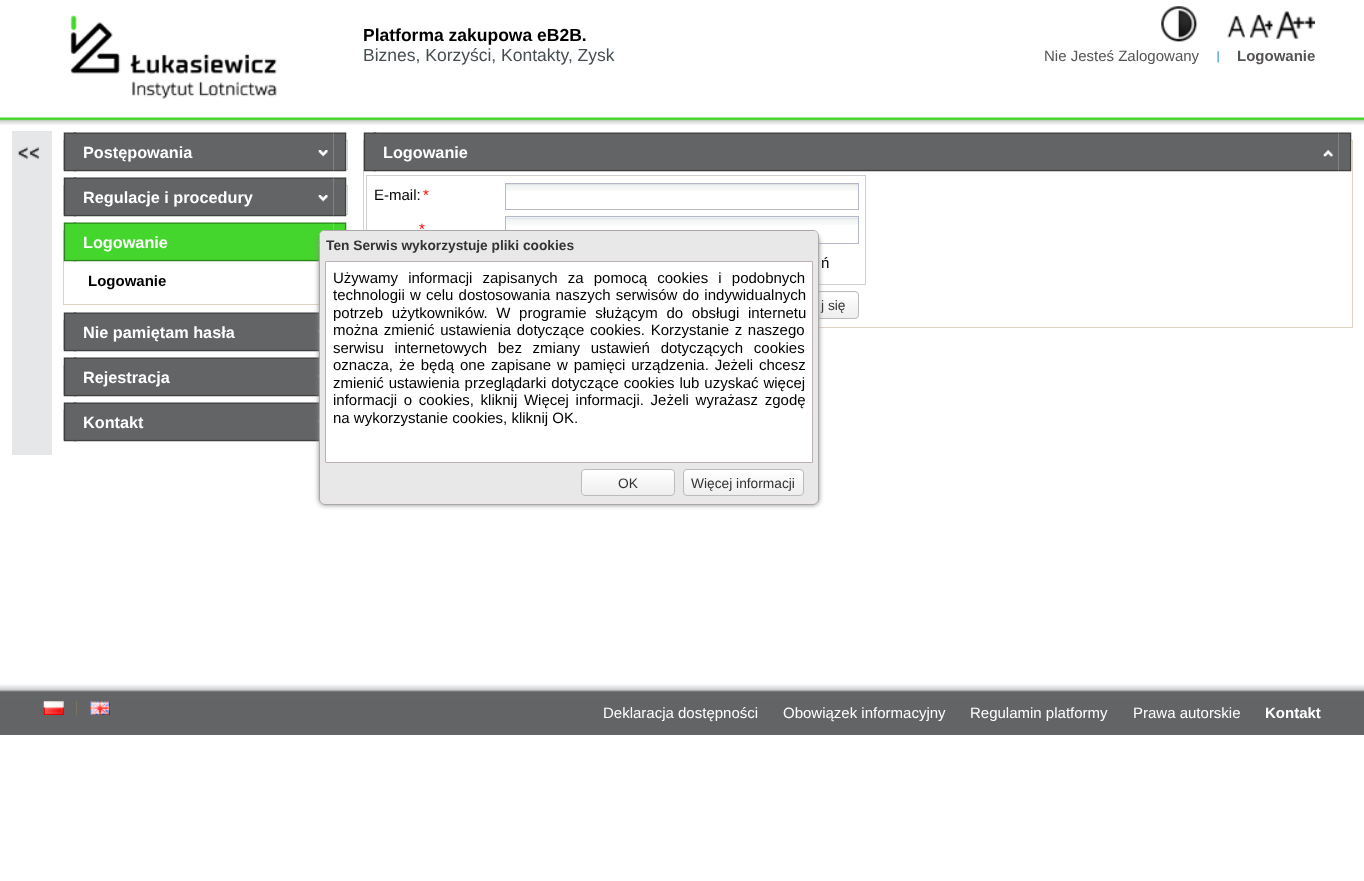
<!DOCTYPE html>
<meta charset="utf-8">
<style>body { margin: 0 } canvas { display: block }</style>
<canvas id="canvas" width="1364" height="881"></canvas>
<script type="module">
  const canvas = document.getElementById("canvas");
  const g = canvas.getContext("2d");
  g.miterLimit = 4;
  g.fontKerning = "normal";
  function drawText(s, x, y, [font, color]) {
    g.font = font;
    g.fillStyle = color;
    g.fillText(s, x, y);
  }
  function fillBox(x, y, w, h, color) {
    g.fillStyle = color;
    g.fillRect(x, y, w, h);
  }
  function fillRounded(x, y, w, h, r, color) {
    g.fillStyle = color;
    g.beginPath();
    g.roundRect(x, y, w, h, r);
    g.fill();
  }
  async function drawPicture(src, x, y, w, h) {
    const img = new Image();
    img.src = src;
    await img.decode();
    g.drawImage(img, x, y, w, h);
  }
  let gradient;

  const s1 = ["bold 17.5px Liberation Sans", "#000000"];
  const s2 = ["17.5px Liberation Sans", "#464E52"];
  const s3 = ["15px Liberation Sans", "#555253"];
  const s4 = ["bold 15px Liberation Sans", "#555253"];
  const s5 = ["bold 16.25px Liberation Sans", "#FFFFFF"];
  const s6 = ["bold 15px Liberation Sans", "#000000"];
  const s7 = ["15px Liberation Sans", "#000000"];
  const s8 = ["15px Liberation Sans", "#FF0000"];
  const s9 = ["13.75px Liberation Sans", "#333333"];
  const s10 = ["bold 13.75px Liberation Sans", "#333333"];
  const s11 = ["15px Liberation Sans", "#FFFFFF"];
  const s12 = ["bold 15px Liberation Sans", "#FFFFFF"];

  fillBox(0, 0, 1364, 881, "#FFFFFF");
  await drawPicture("pic1.png", 0, 112, 1364, 13);
  await drawPicture("pic2.png", 70, 15, 207, 84);
  drawText("Platforma zakupowa eB2B.", 363, 41, s1);
  drawText("Biznes, Korzyści, Kontakty, Zysk", 363, 61, s2);
  await drawPicture("pic3.png", 1161, 6, 37, 36);
  await drawPicture("pic4.png", 1227, 15, 18, 23);
  await drawPicture("pic5.png", 1250, 14, 23, 25);
  await drawPicture("pic6.png", 1276, 11, 39, 28);
  drawText("Nie Jesteś Zalogowany", 1044, 61, s3);
  await drawPicture("pic7.png", 1217, 51, 2, 12);
  drawText("Logowanie", 1237, 61, s4);
  fillBox(12, 131, 40, 324, "#E6E7E8");
  await drawPicture("pic8.png", 17, 146, 23, 14);
  g.strokeStyle = "#DDD3C2";
  g.strokeRect(63.5, 140.5, 284, 29);
  await drawPicture("pic9.png", 63, 132, 14, 40);
  await drawPicture("pic10.png", 333, 132, 14, 40);
  await drawPicture("pic11.png", 73, 132, 261, 40);
  drawText("Postępowania", 83, 158, s5);
  await drawPicture("pic12.png", 318, 150, 10, 7);
  g.strokeRect(63.5, 185.5, 284, 29);
  await drawPicture("pic9.png", 63, 177, 14, 40);
  await drawPicture("pic10.png", 333, 177, 14, 40);
  await drawPicture("pic11.png", 73, 177, 261, 40);
  drawText("Regulacje i procedury", 83, 203, s5);
  await drawPicture("pic12.png", 318, 195, 10, 7);
  g.strokeRect(63.5, 230.5, 284, 74);
  await drawPicture("pic13.png", 63, 222, 14, 40);
  await drawPicture("pic14.png", 333, 222, 14, 8);
  await drawPicture("pic15.png", 73, 222, 261, 40);
  drawText("Logowanie", 83, 248, s5);
  await drawPicture("pic16.png", 318, 243, 1, 4);
  drawText("Logowanie", 88, 286, s6);
  g.strokeRect(63.5, 320.5, 284, 29);
  await drawPicture("pic9.png", 63, 312, 14, 40);
  await drawPicture("pic17.png", 73, 312, 246, 40);
  drawText("Nie pamiętam hasła", 83, 338, s5);
  await drawPicture("pic18.png", 318, 330, 1, 3);
  g.strokeRect(63.5, 365.5, 284, 29);
  await drawPicture("pic9.png", 63, 357, 14, 40);
  await drawPicture("pic17.png", 73, 357, 246, 40);
  drawText("Rejestracja", 83, 383, s5);
  await drawPicture("pic18.png", 318, 375, 1, 3);
  g.strokeRect(63.5, 410.5, 284, 29);
  await drawPicture("pic9.png", 63, 402, 14, 40);
  await drawPicture("pic17.png", 73, 402, 246, 40);
  drawText("Kontakt", 83, 428, s5);
  await drawPicture("pic18.png", 318, 420, 1, 3);
  g.strokeRect(363.5, 140.5, 989, 187);
  await drawPicture("pic19.png", 363, 132, 14, 40);
  await drawPicture("pic20.png", 1338, 132, 14, 40);
  await drawPicture("pic21.png", 373, 132, 966, 40);
  drawText("Logowanie", 383, 158, s5);
  await drawPicture("pic22.png", 1323, 150, 10, 7);
  g.strokeStyle = "#D0D0D0";
  g.strokeRect(366.5, 175.5, 499, 109);
  drawText("E-mail:", 374, 200, s7);
  drawText("*", 423, 200, s8);
  await drawPicture("pic23.png", 506, 184, 352, 7);
  g.strokeStyle = "#B5B8C8";
  g.strokeRect(505.5, 183.5, 353, 26);
  drawText("*", 419, 234, s8);
  await drawPicture("pic24.png", 506, 217, 352, 8);
  g.strokeRect(505.5, 216.5, 353, 27);
  drawText("ń", 821, 268, s7);
  fillRounded(765, 291, 94, 28, 4, "#F8F8F8");
  gradient = g.createLinearGradient(812, 293, 812, 318);
  gradient.addColorStop(0, "#FFFFFF");
  gradient.addColorStop(1, "#EEEEEE");
  g.fillStyle = gradient;
  g.fillRect(819, 293, 39, 25);
  g.beginPath();
  g.roundRect(765.5, 291.5, 93, 27, 3.5);
  g.strokeStyle = "#BBBBBB";
  g.stroke();
  drawText("j się", 821, 310, s9);
  g.fillStyle = "#888888";
  g.filter = "blur(2.5px)";
  g.beginPath();
  g.roundRect(319, 235, 500, 270, 6);
  g.fill();
  g.filter = "none";
  fillRounded(319, 230, 500, 275, 6, "#E8E8E8");
  g.fillStyle = "#EBE7E7";
  g.beginPath();
  g.moveTo(325, 231);
  g.bezierCurveTo(322, 231, 320, 233, 320, 236);
  g.lineTo(320, 499);
  g.bezierCurveTo(320, 502, 322, 504, 325, 504);
  g.lineTo(326, 504);
  g.bezierCurveTo(323, 504, 321, 502, 321, 499);
  g.lineTo(321, 236);
  g.bezierCurveTo(321, 233, 323, 231, 326, 231);
  g.closePath();
  g.fill();
  g.beginPath();
  g.moveTo(811, 504);
  g.lineTo(813, 504);
  g.bezierCurveTo(816, 504, 818, 502, 818, 499);
  g.lineTo(818, 236);
  g.bezierCurveTo(818, 233, 816, 231, 813, 231);
  g.lineTo(811, 231);
  g.bezierCurveTo(814, 231, 816, 233, 816, 236);
  g.lineTo(816, 499);
  g.bezierCurveTo(816, 502, 814, 504, 811, 504);
  g.closePath();
  g.fill();
  g.beginPath();
  g.moveTo(320, 498);
  g.lineTo(320, 499);
  g.bezierCurveTo(320, 502, 322, 504, 325, 504);
  g.lineTo(813, 504);
  g.bezierCurveTo(816, 504, 818, 502, 818, 499);
  g.lineTo(818, 498);
  g.bezierCurveTo(818, 500, 815, 502, 812, 502);
  g.lineTo(325, 502);
  g.bezierCurveTo(322, 502, 320, 500, 320, 498);
  g.closePath();
  g.fill();
  g.beginPath();
  g.roundRect(319.5, 230.5, 499, 274, 5.5);
  g.strokeStyle = "#A9A9A9";
  g.stroke();
  g.fillStyle = "#E8E8E8";
  g.beginPath();
  g.roundRect(320, 231, 498, 25, [5, 5, 0, 0]);
  g.fill();
  g.fillStyle = "#EBE7E7";
  g.beginPath();
  g.moveTo(326, 231);
  g.bezierCurveTo(318.5, 231, 320, 237, 320, 242.5);
  g.lineTo(320, 256);
  g.lineTo(321, 256);
  g.lineTo(321, 236);
  g.bezierCurveTo(321, 233, 323, 231, 326, 231);
  g.closePath();
  g.fill();
  g.beginPath();
  g.moveTo(818, 256);
  g.lineTo(818, 242.5);
  g.bezierCurveTo(818, 235.5, 819.5, 231, 811, 231);
  g.bezierCurveTo(814, 231, 816, 233, 816, 236);
  g.lineTo(816, 256);
  g.closePath();
  g.fill();
  g.beginPath();
  g.moveTo(325, 232);
  g.bezierCurveTo(322, 232, 320, 235, 320, 238);
  g.lineTo(320, 236);
  g.bezierCurveTo(320, 233, 322, 231, 325, 231);
  g.lineTo(813, 231);
  g.bezierCurveTo(816, 231, 818, 233, 818, 236);
  g.lineTo(818, 238);
  g.bezierCurveTo(818, 235, 815, 232, 812, 232);
  g.closePath();
  g.fill();
  g.fillStyle = "#A9A9A9";
  g.beginPath();
  g.moveTo(818, 236);
  g.bezierCurveTo(818, 233, 815, 231, 812, 231);
  g.bezierCurveTo(815, 231, 818, 232.5, 818, 236);
  g.closePath();
  g.fill();
  drawText("Ten Serwis wykorzystuje pliki cookies", 326, 250, s10);
  g.fillStyle = "#FFFFFF";
  g.beginPath();
  g.rect(325.5, 261.5, 487, 201);
  g.fill();
  g.strokeStyle = "#BCB1B0";
  g.stroke();
  g.wordSpacing = "6px";
  drawText("Używamy informacji zapisanych za pomocą cookies i podobnych", 333, 283, s7);
  g.wordSpacing = "1px";
  drawText("technologii w celu dostosowania naszych serwisów do indywidualnych", 333, 300, s7);
  g.wordSpacing = "4.5px";
  drawText("potrzeb użytkowników. W programie służącym do obsługi internetu", 333, 318, s7);
  g.wordSpacing = "1.5px";
  drawText("można zmienić ustawienia dotyczące cookies. Korzystanie z naszego", 333, 335, s7);
  g.wordSpacing = "6.5px";
  drawText("serwisu internetowych bez zmiany ustawień dotyczących cookies", 333, 353, s7);
  g.wordSpacing = "1.75px";
  drawText("oznacza, że będą one zapisane w pamięci urządzenia. Jeżeli chcesz", 333, 370, s7);
  g.wordSpacing = "0.75px";
  drawText("zmienić ustawienia przeglądarki dotyczące cookies lub uzyskać więcej", 333, 388, s7);
  g.wordSpacing = "2.5px";
  drawText("informacji o cookies, kliknij Więcej informacji. Jeżeli wyrażasz zgodę", 333, 405, s7);
  g.wordSpacing = "0px";
  drawText("na wykorzystanie cookies, kliknij OK.", 333, 423, s7);
  fillRounded(581, 469, 94, 27, 4, "#F8F8F8");
  gradient = g.createLinearGradient(628, 470, 628, 495);
  gradient.addColorStop(0, "#FFFFFF");
  gradient.addColorStop(1, "#EEEEEE");
  g.fillStyle = gradient;
  g.fillRect(583, 470, 91, 25);
  g.beginPath();
  g.roundRect(581.5, 469.5, 93, 26, 3.5);
  g.strokeStyle = "#BBBBBB";
  g.stroke();
  drawText("OK", 618, 488, s9);
  g.save();
  g.beginPath();
  g.roundRect(683, 469, 121, 27, 4);
  g.clip();
  gradient = g.createLinearGradient(743, 470, 743, 495);
  gradient.addColorStop(0, "#FFFFFF");
  gradient.addColorStop(1, "#EEEEEE");
  g.fillStyle = gradient;
  g.fillRect(684, 470, 119, 25);
  g.restore();
  g.beginPath();
  g.roundRect(683.5, 469.5, 120, 26, 3.5);
  g.stroke();
  drawText("Więcej informacji", 691, 488, s9);
  await drawPicture("pic25.png", 0, 684, 1364, 51);
  await drawPicture("pic26.png", 43, 701, 21, 14);
  fillBox(76, 701, 1, 14, "#7C7260");
  await drawPicture("pic27.png", 90, 701, 20, 14);
  drawText("Deklaracja dostępności", 603, 718, s11);
  drawText("Obowiązek informacyjny", 783, 718, s11);
  drawText("Regulamin platformy", 970, 718, s11);
  drawText("Prawa autorskie", 1133, 718, s11);
  drawText("Kontakt", 1265, 718, s12);
</script>
